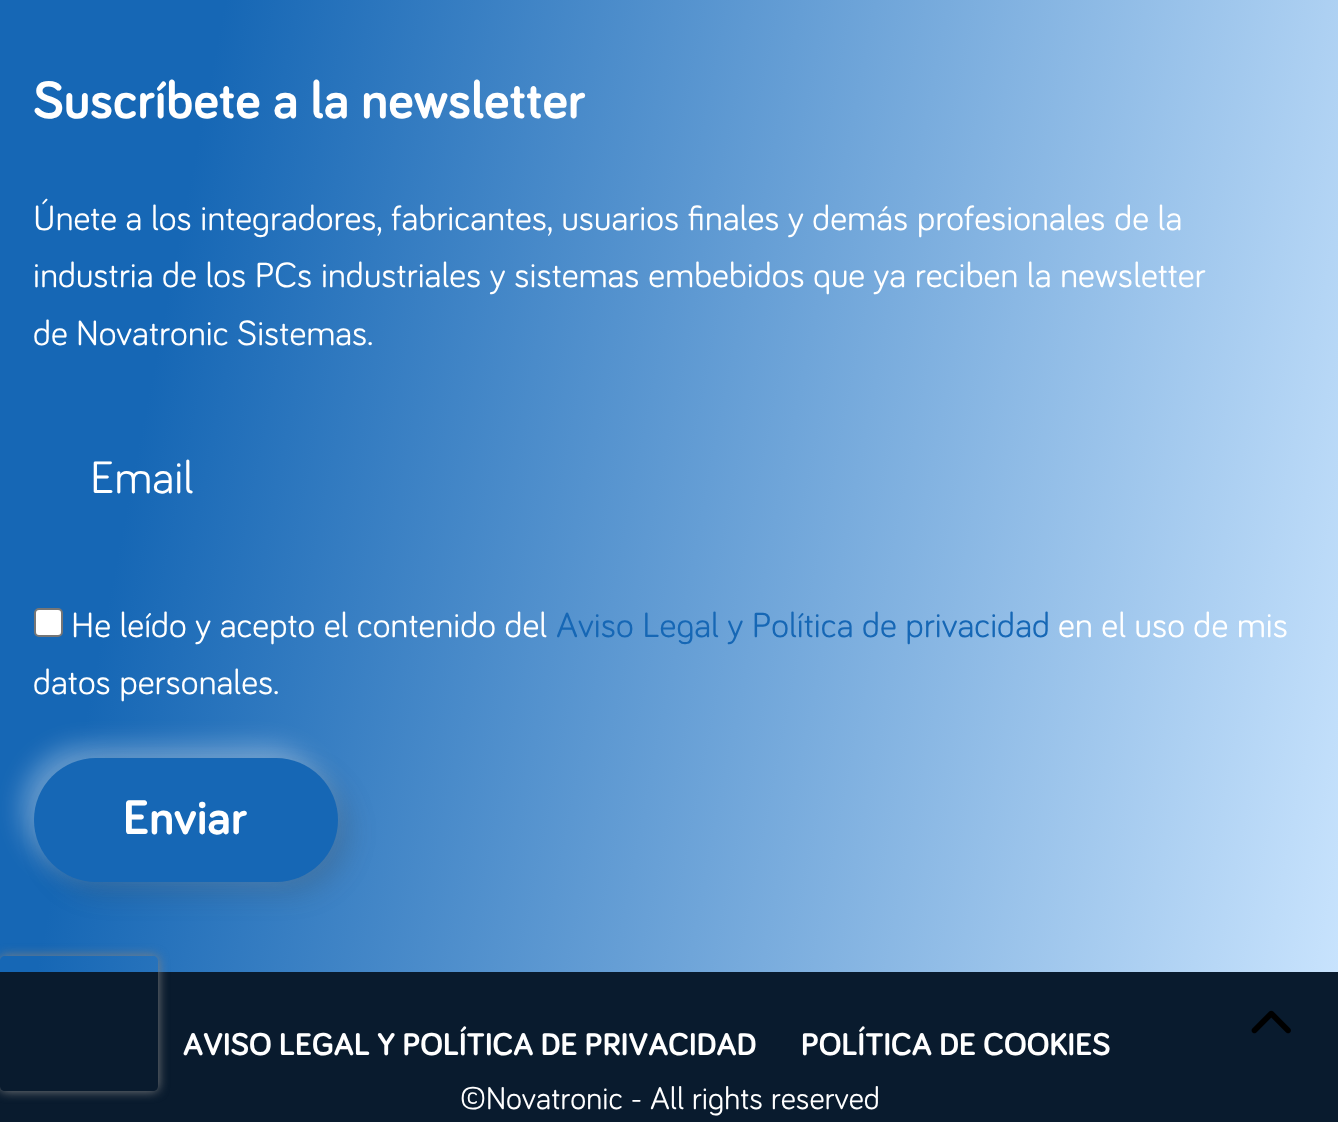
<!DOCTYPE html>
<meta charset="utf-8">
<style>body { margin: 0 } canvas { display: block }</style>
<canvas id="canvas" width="1338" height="1122"></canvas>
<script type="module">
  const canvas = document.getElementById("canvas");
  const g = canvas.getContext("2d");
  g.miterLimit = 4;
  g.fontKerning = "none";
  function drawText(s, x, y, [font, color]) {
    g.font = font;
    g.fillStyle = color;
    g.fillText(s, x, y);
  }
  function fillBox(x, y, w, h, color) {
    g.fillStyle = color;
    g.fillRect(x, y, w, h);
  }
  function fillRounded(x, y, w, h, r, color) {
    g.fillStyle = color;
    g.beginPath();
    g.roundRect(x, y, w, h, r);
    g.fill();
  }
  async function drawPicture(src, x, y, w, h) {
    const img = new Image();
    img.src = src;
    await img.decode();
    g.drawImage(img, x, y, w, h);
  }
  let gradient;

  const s1 = ["bold 54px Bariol", "#FFFFFF"];
  const s2 = ["36px Bariol", "#FFFFFF"];
  const s3 = ["47px Bariol", "#FFFFFF"];
  const s4 = ["36px Bariol", "#1667B5"];
  const s5 = ["bold 50px Bariol", "#FFFFFF"];
  const s6 = ["bold 32.4px Bariol", "#FFFFFF"];
  const s7 = ["32.4px Bariol", "#FFFFFF"];

  fillBox(0, 0, 1338, 1122, "#FFFFFF");
  gradient = g.createLinearGradient(-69, 332, 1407, 619);
  gradient.addColorStop(0.15, "#1667B5");
  gradient.addColorStop(1, "#C8E3FD");
  g.fillStyle = gradient;
  g.fillRect(0, 0, 1338, 972);
  drawText("Suscríbete a la newsletter", 33, 118, s1);
  drawText("Únete a los integradores, fabricantes, usuarios finales y demás profesionales de la", 33, 230, s2);
  drawText("industria de los PCs industriales y sistemas embebidos que ya reciben la newsletter", 33, 287, s2);
  drawText("de Novatronic Sistemas.", 33, 345, s2);
  drawText("Email", 90, 493, s3);
  g.beginPath();
  g.roundRect(35, 609, 27, 27, 4);
  g.fill();
  g.strokeStyle = "#767676";
  g.lineWidth = 2;
  g.stroke();
  drawText("He leído y acepto el contenido del", 71, 637, s2);
  drawText("Aviso Legal y Política de privacidad", 556, 637, s4);
  drawText("en el uso de mis", 1058, 637, s2);
  drawText("datos personales.", 33, 694, s2);
  g.fillStyle = "rgba(255, 255, 255, 0.35)";
  g.filter = "blur(13.5px)";
  g.beginPath();
  g.roundRect(23, 747, 303, 124, 62);
  g.fill();
  g.filter = "none";
  g.fillStyle = "rgba(68, 68, 68, 0.22)";
  g.filter = "blur(13.5px)";
  g.beginPath();
  g.roundRect(45, 770, 304, 123, 61.5);
  g.fill();
  g.filter = "none";
  fillRounded(34, 758, 304, 124, 62, "#1667B5");
  drawText("Enviar", 123, 834, s5);
  fillBox(0, 972, 1338, 150, "#091B2E");
  drawText("AVISO LEGAL Y POLÍTICA DE PRIVACIDAD", 183, 1055, s6);
  drawText("POLÍTICA DE COOKIES", 801, 1055, s6);
  drawText("©Novatronic - All rights reserved", 460, 1109, s7);
  g.save();
  g.beginPath();
  g.moveTo(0, 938);
  g.lineTo(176, 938);
  g.lineTo(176, 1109);
  g.lineTo(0, 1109);
  g.closePath();
  g.moveTo(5, 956);
  g.lineTo(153, 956);
  g.bezierCurveTo(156, 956, 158, 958, 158, 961);
  g.lineTo(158, 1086);
  g.bezierCurveTo(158, 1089, 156, 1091, 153, 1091);
  g.lineTo(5, 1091);
  g.bezierCurveTo(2, 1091, 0, 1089, 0, 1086);
  g.lineTo(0, 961);
  g.bezierCurveTo(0, 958, 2, 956, 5, 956);
  g.closePath();
  g.clip("evenodd");
  g.fillStyle = "#808080";
  g.filter = "blur(5.5px)";
  g.beginPath();
  g.roundRect(0, 956, 158, 135, 5);
  g.fill();
  g.filter = "none";
  g.restore();
  await drawPicture("pic1.png", 1251, 1010, 40, 24);
</script>
